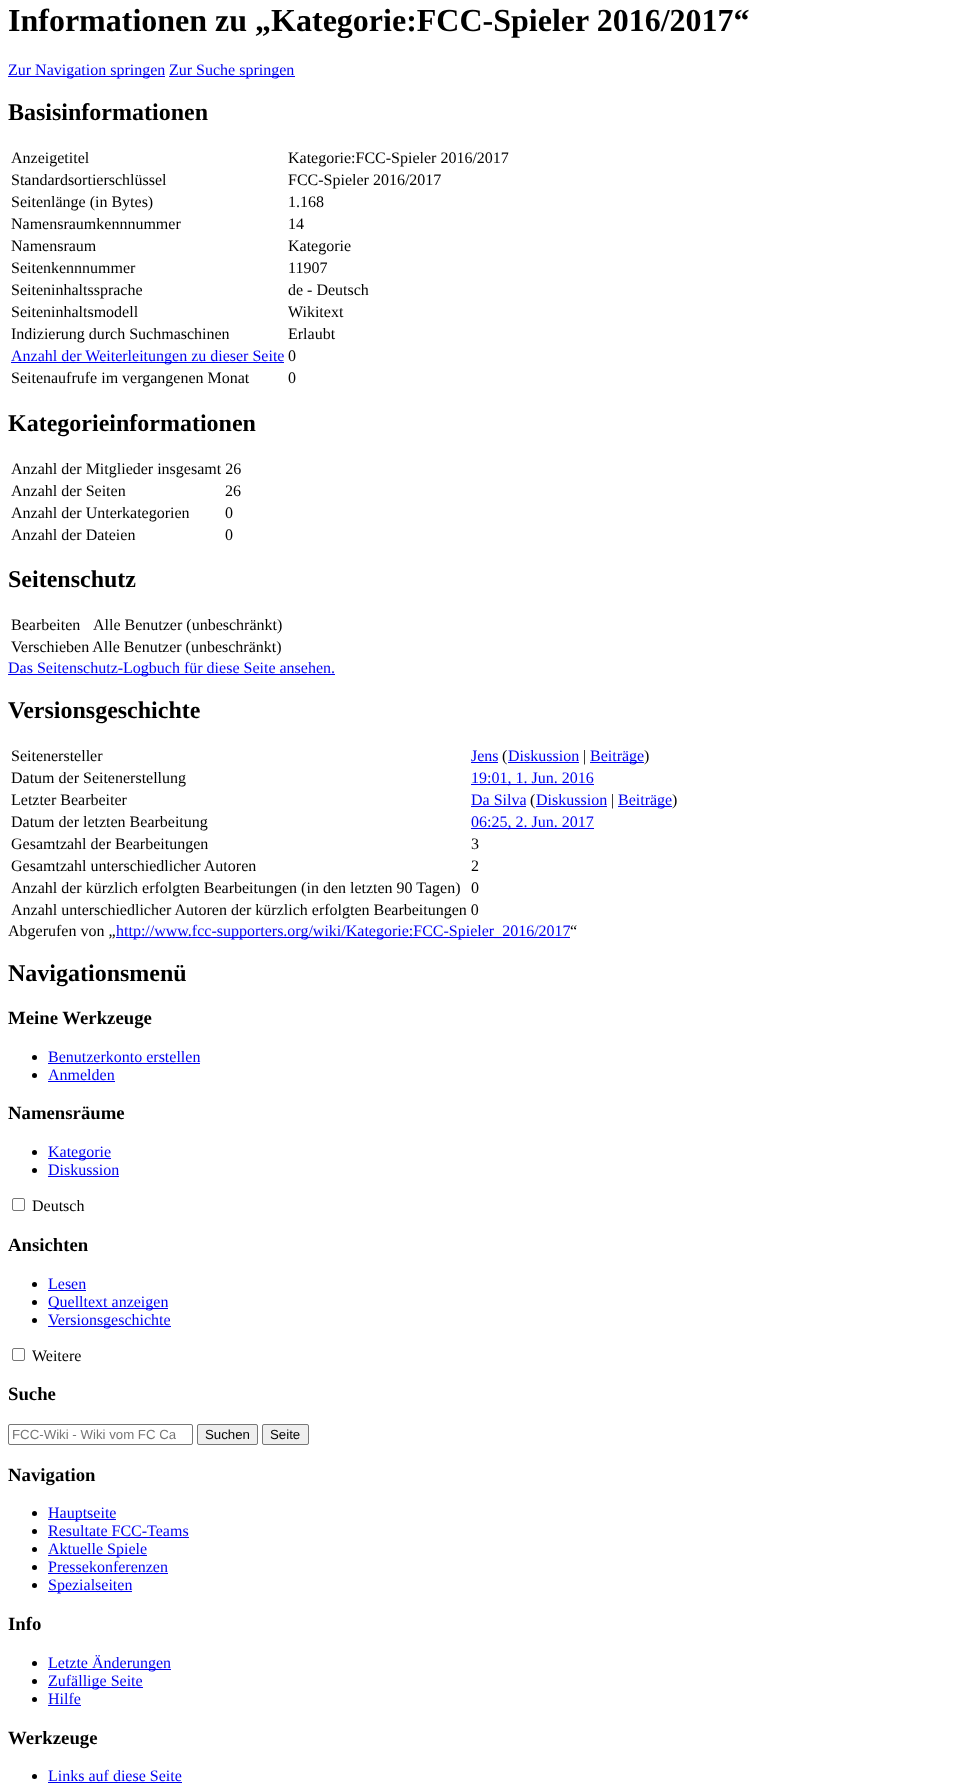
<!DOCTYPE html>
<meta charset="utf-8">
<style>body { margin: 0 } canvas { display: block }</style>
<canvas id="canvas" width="973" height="1792"></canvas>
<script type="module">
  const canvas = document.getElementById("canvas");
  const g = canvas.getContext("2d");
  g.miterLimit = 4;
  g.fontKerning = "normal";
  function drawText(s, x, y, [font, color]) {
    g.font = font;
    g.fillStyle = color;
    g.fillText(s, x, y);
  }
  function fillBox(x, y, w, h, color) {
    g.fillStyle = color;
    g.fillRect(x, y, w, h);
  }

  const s1 = ["bold 32px Liberation Serif", "#000000"];
  const s2 = ["16px Liberation Serif", "#0000EE"];
  const s3 = ["bold 24px Liberation Serif", "#000000"];
  const s4 = ["16px Liberation Serif", "#000000"];
  const s5 = ["bold 18.75px Liberation Serif", "#000000"];
  const s6 = ["13.25px Liberation Sans", "#757575"];
  const s7 = ["13.25px Liberation Sans", "#000000"];

  fillBox(0, 0, 973, 1792, "#FFFFFF");
  drawText("Informationen zu „Kategorie:FCC-Spieler 2016/2017“", 8, 31, s1);
  fillBox(8, 76, 157, 1, "#0000EE");
  drawText("Zur Navigation springen", 8, 75, s2);
  fillBox(169, 76, 126, 1, "#0000EE");
  drawText("Zur Suche springen", 169, 75, s2);
  drawText("Basisinformationen", 8, 120, s3);
  drawText("Anzeigetitel", 11, 163, s4);
  drawText("Kategorie:FCC-Spieler 2016/2017", 288, 163, s4);
  drawText("Standardsortierschlüssel", 11, 185, s4);
  drawText("FCC-Spieler 2016/2017", 288, 185, s4);
  drawText("Seitenlänge (in Bytes)", 11, 207, s4);
  drawText("1.168", 288, 207, s4);
  drawText("Namensraumkennnummer", 11, 229, s4);
  drawText("14", 288, 229, s4);
  drawText("Namensraum", 11, 251, s4);
  drawText("Kategorie", 288, 251, s4);
  drawText("Seitenkennnummer", 11, 273, s4);
  drawText("11907", 288, 273, s4);
  drawText("Seiteninhaltssprache", 11, 295, s4);
  drawText("de - Deutsch", 288, 295, s4);
  drawText("Seiteninhaltsmodell", 11, 317, s4);
  drawText("Wikitext", 288, 317, s4);
  drawText("Indizierung durch Suchmaschinen", 11, 339, s4);
  drawText("Erlaubt", 288, 339, s4);
  fillBox(11, 362, 273, 1, "#0000EE");
  drawText("Anzahl der Weiterleitungen zu dieser Seite", 11, 361, s2);
  drawText("0", 288, 361, s4);
  drawText("Seitenaufrufe im vergangenen Monat", 11, 383, s4);
  drawText("0", 288, 383, s4);
  drawText("Kategorieinformationen", 8, 431, s3);
  drawText("Anzahl der Mitglieder insgesamt 26", 11, 474, s4);
  drawText("Anzahl der Seiten", 11, 496, s4);
  drawText("26", 225, 496, s4);
  drawText("Anzahl der Unterkategorien", 11, 518, s4);
  drawText("0", 225, 518, s4);
  drawText("Anzahl der Dateien", 11, 540, s4);
  drawText("0", 225, 540, s4);
  drawText("Seitenschutz", 8, 587, s3);
  drawText("Bearbeiten", 11, 630, s4);
  drawText("Alle Benutzer (unbeschränkt)", 93, 630, s4);
  drawText("Verschieben Alle Benutzer (unbeschränkt)", 11, 652, s4);
  fillBox(8, 674, 327, 1, "#0000EE");
  drawText("Das Seitenschutz-Logbuch für diese Seite ansehen.", 8, 673, s2);
  drawText("Versionsgeschichte", 8, 718, s3);
  drawText("Seitenersteller", 11, 761, s4);
  drawText("Jens", 471, 761, s2);
  fillBox(471, 762, 27, 1, "#0000EE");
  drawText("(", 502, 761, s4);
  fillBox(508, 762, 71, 1, "#0000EE");
  drawText("Diskussion", 508, 761, s2);
  drawText("|", 583, 761, s4);
  fillBox(590, 762, 54, 1, "#0000EE");
  drawText("Beiträge", 590, 761, s2);
  drawText(")", 644, 761, s4);
  drawText("Datum der Seitenerstellung", 11, 783, s4);
  fillBox(471, 784, 123, 1, "#0000EE");
  drawText("19:01, 1. Jun. 2016", 471, 783, s2);
  drawText("Letzter Bearbeiter", 11, 805, s4);
  drawText("Da Silva", 471, 805, s2);
  fillBox(471, 806, 55, 1, "#0000EE");
  drawText("(", 530, 805, s4);
  fillBox(536, 806, 71, 1, "#0000EE");
  drawText("Diskussion", 536, 805, s2);
  drawText("|", 611, 805, s4);
  fillBox(618, 806, 54, 1, "#0000EE");
  drawText("Beiträge", 618, 805, s2);
  drawText(")", 672, 805, s4);
  drawText("Datum der letzten Bearbeitung", 11, 827, s4);
  fillBox(471, 828, 123, 1, "#0000EE");
  drawText("06:25, 2. Jun. 2017", 471, 827, s2);
  drawText("Gesamtzahl der Bearbeitungen", 11, 849, s4);
  drawText("3", 471, 849, s4);
  drawText("Gesamtzahl unterschiedlicher Autoren", 11, 871, s4);
  drawText("2", 471, 871, s4);
  drawText("Anzahl der kürzlich erfolgten Bearbeitungen (in den letzten 90 Tagen)", 11, 893, s4);
  drawText("0", 471, 893, s4);
  drawText("Anzahl unterschiedlicher Autoren der kürzlich erfolgten Bearbeitungen 0", 11, 915, s4);
  drawText("Abgerufen von „", 8, 936, s4);
  fillBox(116, 937, 454, 1, "#0000EE");
  drawText("http://www.fcc-supporters.org/wiki/Kategorie:FCC-Spieler_2016/2017", 116, 936, s2);
  drawText("“", 570, 936, s4);
  drawText("Navigationsmenü", 8, 981, s3);
  drawText("Meine Werkzeuge", 8, 1024, s5);
  g.beginPath();
  g.arc(34.5, 1057.5, 2.5, 0, Math.PI * 2);
  g.fill();
  drawText("Benutzerkonto erstellen", 48, 1062, s2);
  fillBox(48, 1063, 152, 1, "#0000EE");
  g.fillStyle = "#000000";
  g.beginPath();
  g.arc(34.5, 1075.5, 2.5, 0, Math.PI * 2);
  g.fill();
  drawText("Anmelden", 48, 1080, s2);
  fillBox(48, 1081, 67, 1, "#0000EE");
  drawText("Namensräume", 8, 1119, s5);
  g.beginPath();
  g.arc(34.5, 1152.5, 2.5, 0, Math.PI * 2);
  g.fill();
  fillBox(48, 1158, 63, 1, "#0000EE");
  drawText("Kategorie", 48, 1157, s2);
  g.fillStyle = "#000000";
  g.beginPath();
  g.arc(34.5, 1170.5, 2.5, 0, Math.PI * 2);
  g.fill();
  drawText("Diskussion", 48, 1175, s2);
  fillBox(48, 1176, 71, 1, "#0000EE");
  g.beginPath();
  g.roundRect(12.5, 1198.5, 12, 12, 1.5);
  g.strokeStyle = "#767676";
  g.stroke();
  drawText("Deutsch", 32, 1211, s4);
  drawText("Ansichten", 8, 1251, s5);
  g.beginPath();
  g.arc(34.5, 1284.5, 2.5, 0, Math.PI * 2);
  g.fill();
  drawText("Lesen", 48, 1289, s2);
  fillBox(48, 1290, 38, 1, "#0000EE");
  g.fillStyle = "#000000";
  g.beginPath();
  g.arc(34.5, 1302.5, 2.5, 0, Math.PI * 2);
  g.fill();
  fillBox(48, 1308, 120, 1, "#0000EE");
  drawText("Quelltext anzeigen", 48, 1307, s2);
  g.fillStyle = "#000000";
  g.beginPath();
  g.arc(34.5, 1320.5, 2.5, 0, Math.PI * 2);
  g.fill();
  fillBox(48, 1326, 123, 1, "#0000EE");
  drawText("Versionsgeschichte", 48, 1325, s2);
  g.beginPath();
  g.roundRect(12.5, 1348.5, 12, 12, 1.5);
  g.stroke();
  drawText("Weitere", 32, 1361, s4);
  drawText("Suche", 8, 1400, s5);
  g.beginPath();
  g.roundRect(8.5, 1424.5, 184, 20, 1.5);
  g.stroke();
  g.save();
  g.beginPath();
  g.rect(12, 1427, 164, 15);
  g.clip();
  drawText("FCC-Wiki - Wiki vom FC Ca", 12, 1439, s6);
  g.restore();
  g.fillStyle = "#EFEFEF";
  g.beginPath();
  g.roundRect(197.5, 1424.5, 60, 20, 1.5);
  g.fill();
  g.stroke();
  drawText("Suchen", 205, 1439, s7);
  g.fillStyle = "#EFEFEF";
  g.beginPath();
  g.roundRect(262.5, 1424.5, 46, 20, 1.5);
  g.fill();
  g.stroke();
  drawText("Seite", 270, 1439, s7);
  drawText("Navigation", 8, 1481, s5);
  g.beginPath();
  g.arc(34.5, 1513.5, 2.5, 0, Math.PI * 2);
  g.fill();
  fillBox(48, 1519, 68, 1, "#0000EE");
  drawText("Hauptseite", 48, 1518, s2);
  g.fillStyle = "#000000";
  g.beginPath();
  g.arc(34.5, 1531.5, 2.5, 0, Math.PI * 2);
  g.fill();
  drawText("Resultate FCC-Teams", 48, 1536, s2);
  fillBox(48, 1537, 141, 1, "#0000EE");
  g.fillStyle = "#000000";
  g.beginPath();
  g.arc(34.5, 1549.5, 2.5, 0, Math.PI * 2);
  g.fill();
  fillBox(48, 1555, 99, 1, "#0000EE");
  drawText("Aktuelle Spiele", 48, 1554, s2);
  g.fillStyle = "#000000";
  g.beginPath();
  g.arc(34.5, 1567.5, 2.5, 0, Math.PI * 2);
  g.fill();
  drawText("Pressekonferenzen", 48, 1572, s2);
  fillBox(48, 1573, 120, 1, "#0000EE");
  g.fillStyle = "#000000";
  g.beginPath();
  g.arc(34.5, 1585.5, 2.5, 0, Math.PI * 2);
  g.fill();
  fillBox(48, 1591, 84, 1, "#0000EE");
  drawText("Spezialseiten", 48, 1590, s2);
  drawText("Info", 8, 1630, s5);
  g.beginPath();
  g.arc(34.5, 1663.5, 2.5, 0, Math.PI * 2);
  g.fill();
  fillBox(48, 1669, 123, 1, "#0000EE");
  drawText("Letzte Änderungen", 48, 1668, s2);
  g.fillStyle = "#000000";
  g.beginPath();
  g.arc(34.5, 1681.5, 2.5, 0, Math.PI * 2);
  g.fill();
  fillBox(48, 1687, 95, 1, "#0000EE");
  drawText("Zufällige Seite", 48, 1686, s2);
  g.fillStyle = "#000000";
  g.beginPath();
  g.arc(34.5, 1699.5, 2.5, 0, Math.PI * 2);
  g.fill();
  drawText("Hilfe", 48, 1704, s2);
  fillBox(48, 1705, 33, 1, "#0000EE");
  drawText("Werkzeuge", 8, 1744, s5);
  g.beginPath();
  g.arc(34.5, 1776.5, 2.5, 0, Math.PI * 2);
  g.fill();
  drawText("Links auf diese Seite", 48, 1781, s2);
  fillBox(48, 1782, 134, 1, "#0000EE");
</script>
